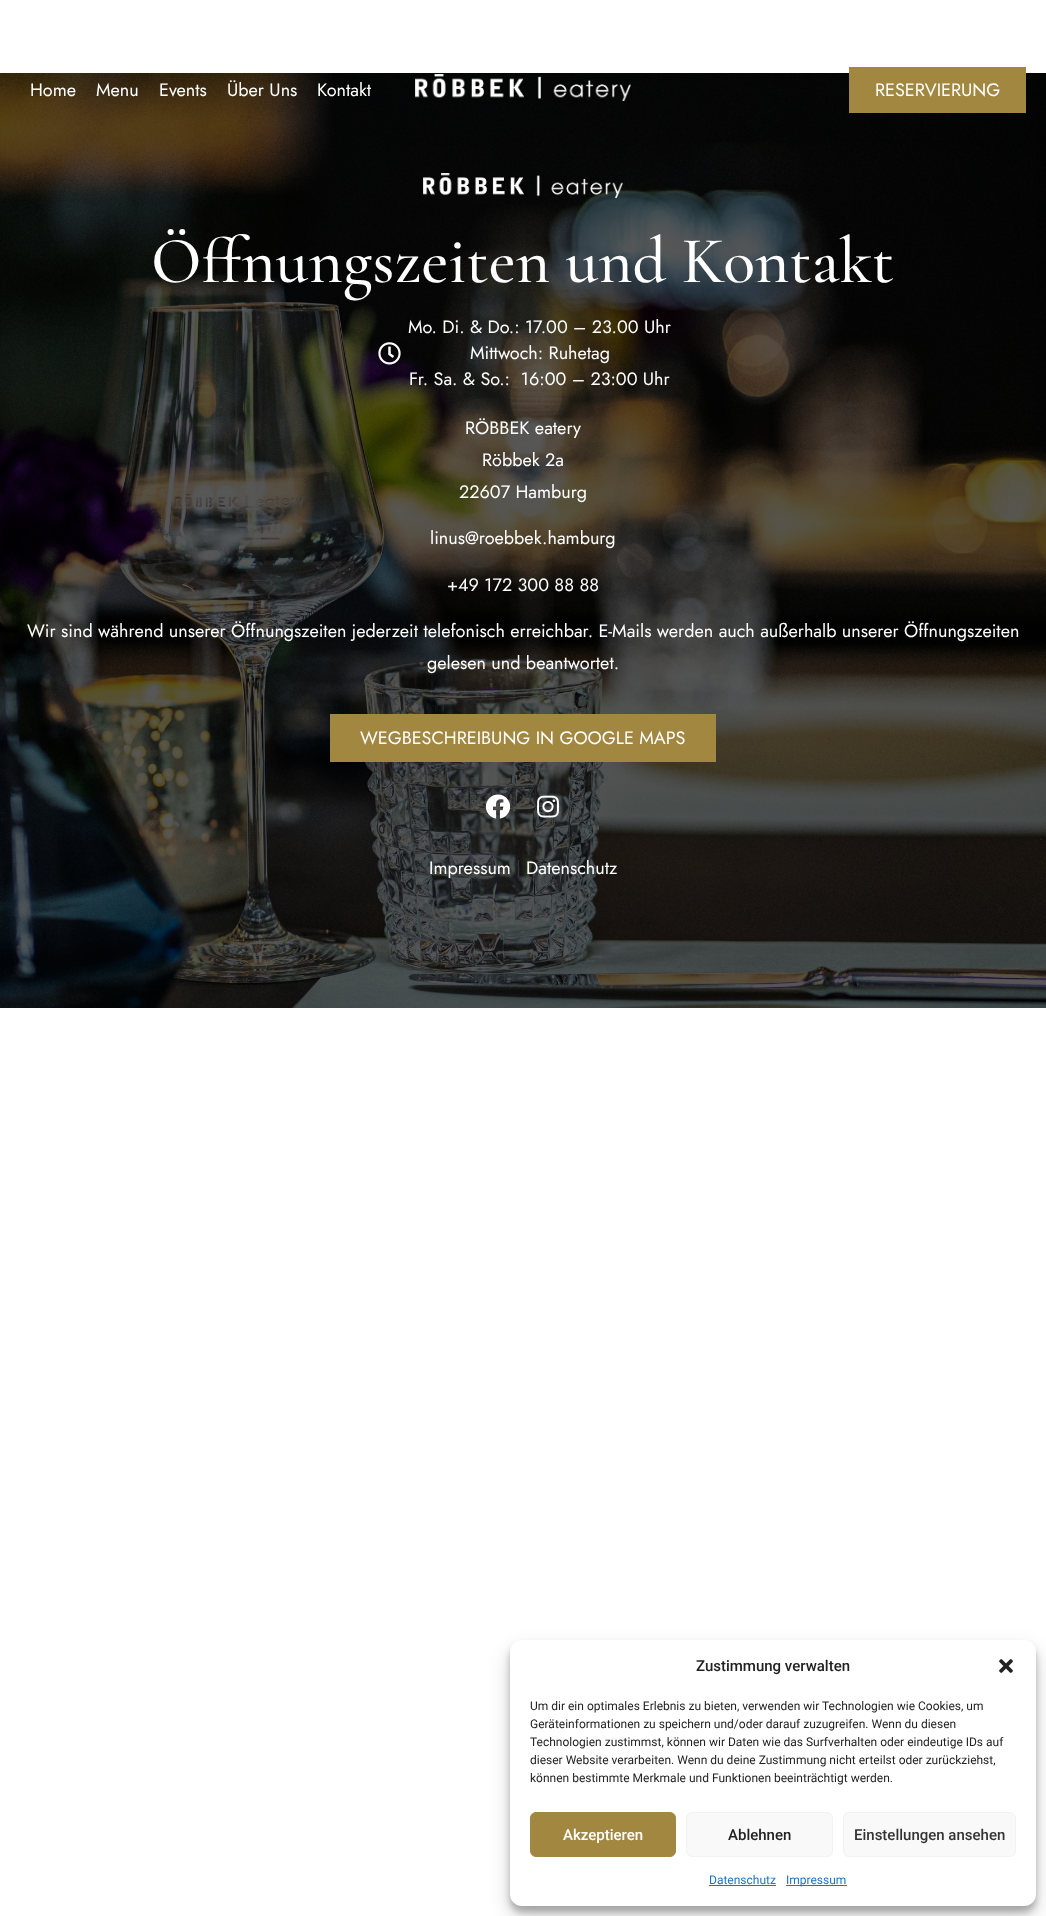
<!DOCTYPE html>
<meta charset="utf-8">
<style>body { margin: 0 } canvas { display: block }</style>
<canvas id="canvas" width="1046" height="1916"></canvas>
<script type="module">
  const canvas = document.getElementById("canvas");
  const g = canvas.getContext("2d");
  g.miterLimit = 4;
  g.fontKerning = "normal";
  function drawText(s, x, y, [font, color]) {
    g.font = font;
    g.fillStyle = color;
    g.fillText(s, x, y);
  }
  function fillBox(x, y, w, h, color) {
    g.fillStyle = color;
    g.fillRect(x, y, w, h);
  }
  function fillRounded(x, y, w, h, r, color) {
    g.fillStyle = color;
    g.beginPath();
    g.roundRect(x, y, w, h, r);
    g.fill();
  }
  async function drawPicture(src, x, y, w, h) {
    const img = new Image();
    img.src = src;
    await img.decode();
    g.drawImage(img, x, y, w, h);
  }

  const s1 = ["18px Jost", "#FFFFFF"];
  const s2 = ["500 66px Cormorant Garamond", "#FFFFFF"];
  const s3 = ["18px Jost", "#333333"];
  const s4 = ["500 15px Roboto", "#222222"];
  const s5 = ["12px Roboto", "#222222"];
  const s6 = ["500 15px Roboto", "#FFFFFF"];
  const s7 = ["500 15px Roboto", "#333333"];
  const s8 = ["12px Roboto", "#1E73BE"];

  fillBox(0, 0, 1046, 1916, "#FFFFFF");
  await drawPicture("pic2.png", 0, 73, 1046, 935);
  drawText("Home", 30, 96, s1);
  drawText("Menu", 96, 96, s1);
  drawText("Events", 159, 96, s1);
  drawText("Über Uns", 227, 96, s1);
  drawText("Kontakt", 317, 96, s1);
  await drawPicture("pic1.png", 415, 74, 216, 27);
  fillBox(849, 67, 177, 46, "#A28740");
  drawText("RESERVIERUNG", 875, 96, s1);
  await drawPicture("pic3.png", 423, 173, 200, 25);
  drawText("Öffnungszeiten und Kontakt", 151, 282, s2);
  await drawPicture("pic4.png", 378, 342, 23, 23);
  drawText("Mo. Di. & Do.: 17.00 – 23.00 Uhr", 408, 333, s1);
  drawText("Mittwoch: Ruhetag", 470, 359, s1);
  drawText("Fr. Sa. & So.:  16:00 – 23:00 Uhr", 409, 385, s1);
  drawText("RÖBBEK eatery", 465, 434, s1);
  drawText("Röbbek 2a", 482, 466, s1);
  drawText("22607 Hamburg", 459, 498, s1);
  drawText("linus@roebbek.hamburg", 430, 544, s1);
  drawText("+49 172 300 88 88", 447, 591, s1);
  drawText("Wir sind während unserer Öffnungszeiten jederzeit telefonisch erreichbar. E-Mails werden auch außerhalb unserer Öffnungszeiten", 27, 637, s1);
  drawText("gelesen und beantwortet.", 427, 669, s1);
  fillBox(330, 714, 386, 48, "#A28740");
  drawText("WEGBESCHREIBUNG IN GOOGLE MAPS", 360, 744, s1);
  await drawPicture("pic5.png", 485, 794, 26, 25);
  await drawPicture("pic6.png", 537, 795, 22, 23);
  drawText("Impressum", 429, 874, s1);
  drawText("|", 516, 874, s3);
  drawText("Datenschutz", 526, 874, s1);
  g.fillStyle = "rgba(0, 0, 0, 0.23)";
  g.filter = "blur(3px)";
  g.beginPath();
  g.roundRect(510, 1646, 526, 266, 12);
  g.fill();
  g.filter = "none";
  g.fillStyle = "rgba(0, 0, 0, 0.19)";
  g.filter = "blur(10px)";
  g.beginPath();
  g.roundRect(510, 1650, 526, 266, 12);
  g.fill();
  g.filter = "none";
  fillRounded(510, 1640, 526, 266, 12, "#FFFFFF");
  drawText("Zustimmung verwalten", 696, 1671, s4);
  await drawPicture("pic7.png", 999, 1659, 14, 14);
  drawText("Um dir ein optimales Erlebnis zu bieten, verwenden wir Technologien wie Cookies, um", 530, 1710, s5);
  drawText("Geräteinformationen zu speichern und/oder darauf zuzugreifen. Wenn du diesen", 530, 1728, s5);
  drawText("Technologien zustimmst, können wir Daten wie das Surfverhalten oder eindeutige IDs auf", 530, 1746, s5);
  drawText("dieser Website verarbeiten. Wenn du deine Zustimmung nicht erteilst oder zurückziehst,", 530, 1764, s5);
  drawText("können bestimmte Merkmale und Funktionen beeinträchtigt werden.", 530, 1782, s5);
  g.fillStyle = "#A28740";
  g.beginPath();
  g.roundRect(530.5, 1812.5, 145, 44, 5.5);
  g.fill();
  g.strokeStyle = "#A28740";
  g.stroke();
  drawText("Akzeptieren", 563, 1840, s6);
  g.fillStyle = "#F9F9F9";
  g.beginPath();
  g.roundRect(686.5, 1812.5, 146, 44, 5.5);
  g.fill();
  g.strokeStyle = "#F2F2F2";
  g.stroke();
  drawText("Ablehnen", 728, 1840, s4);
  g.fillStyle = "#F9F9F9";
  g.beginPath();
  g.roundRect(843.5, 1812.5, 172, 44, 5.5);
  g.fill();
  g.stroke();
  drawText("Einstellungen ansehen", 854, 1840, s7);
  drawText("Datenschutz", 709, 1884, s8);
  fillBox(709, 1885, 67, 1, "#1E73BE");
  fillBox(786, 1885, 61, 1, "#1E73BE");
  drawText("Impressum", 786, 1884, s8);
</script>
